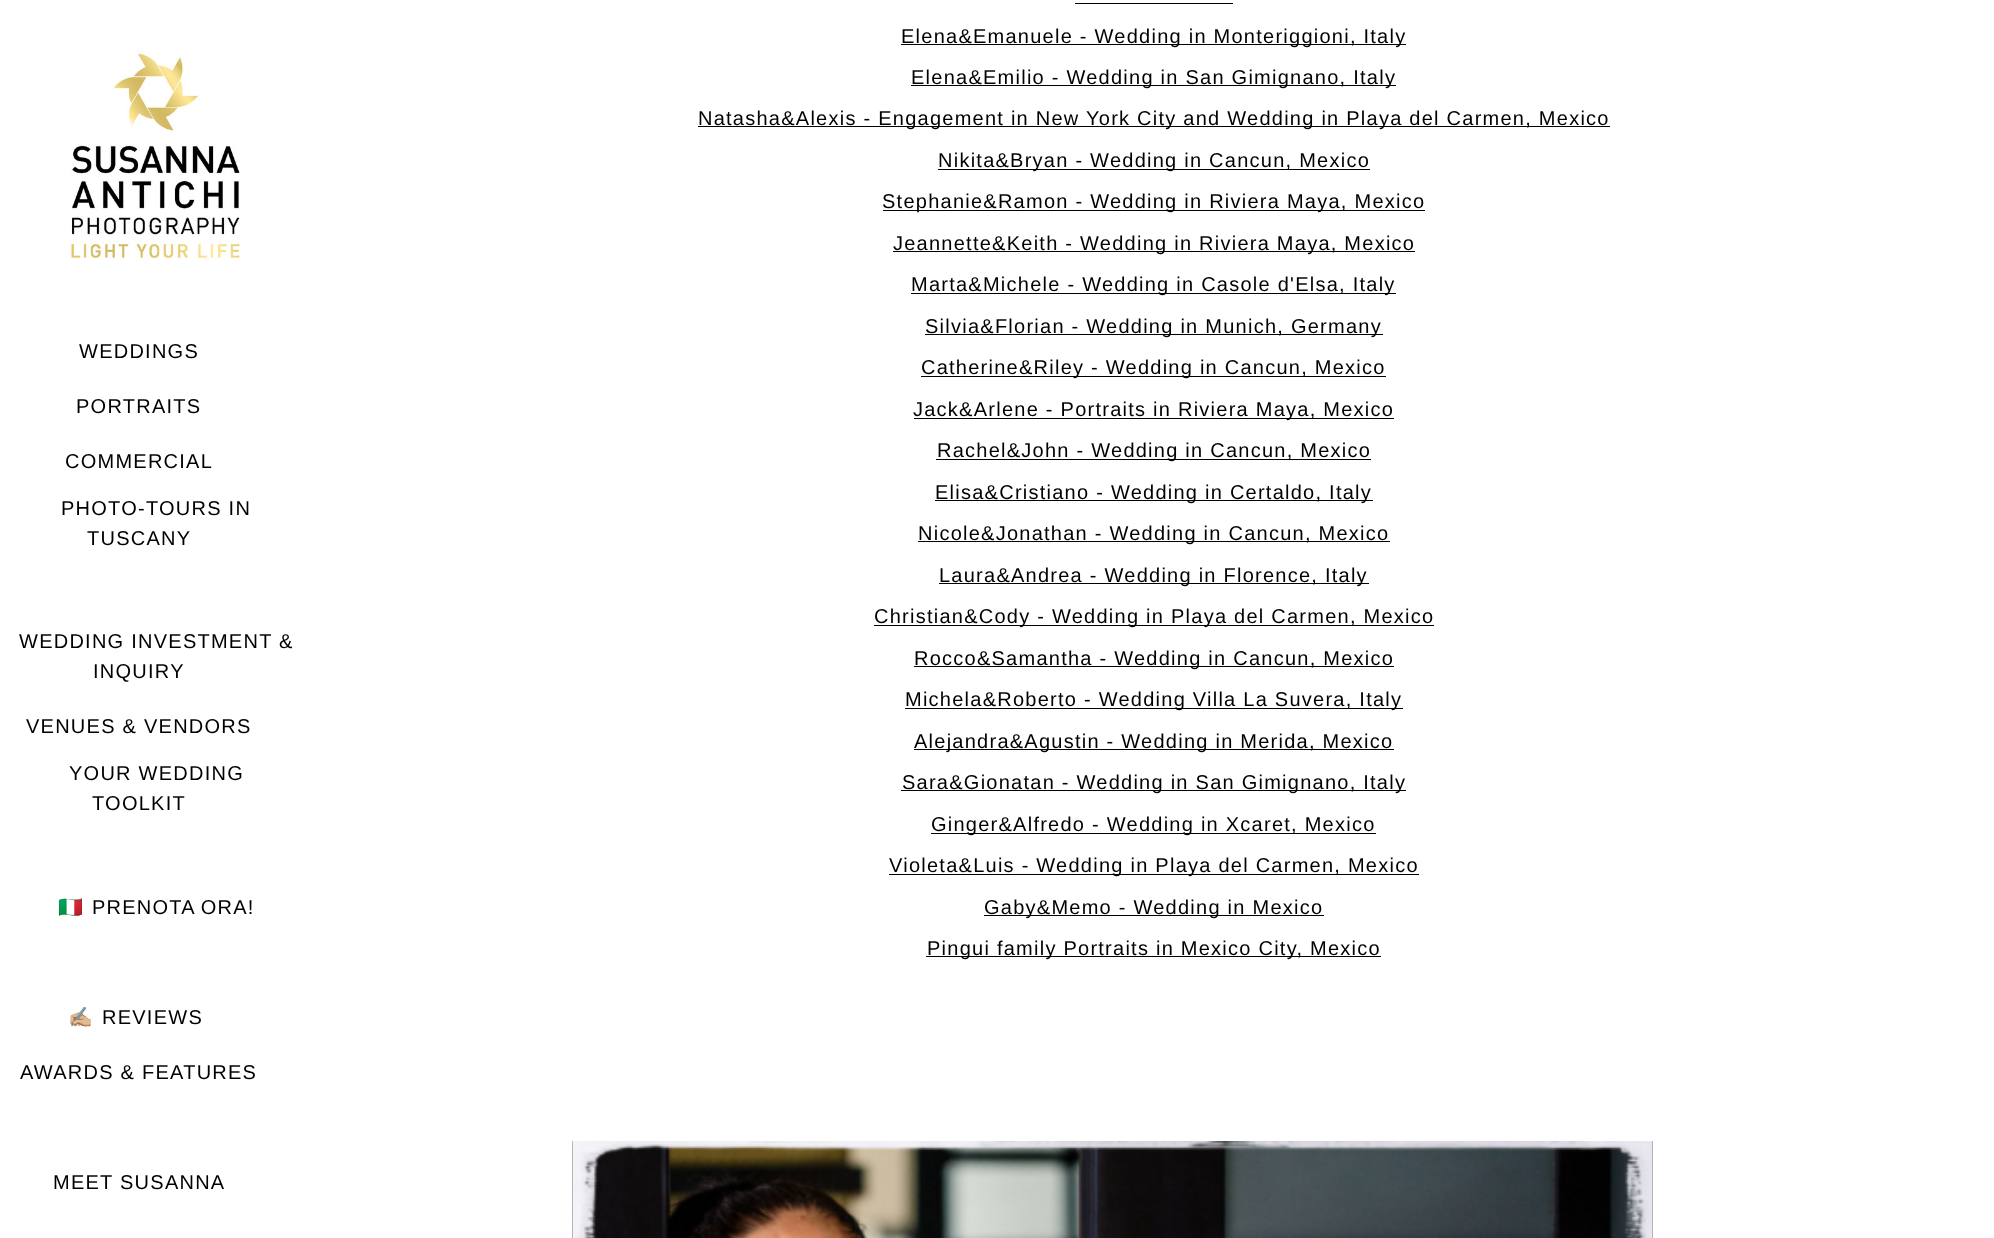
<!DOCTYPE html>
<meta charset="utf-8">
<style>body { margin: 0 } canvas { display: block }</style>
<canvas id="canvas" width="1994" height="1238"></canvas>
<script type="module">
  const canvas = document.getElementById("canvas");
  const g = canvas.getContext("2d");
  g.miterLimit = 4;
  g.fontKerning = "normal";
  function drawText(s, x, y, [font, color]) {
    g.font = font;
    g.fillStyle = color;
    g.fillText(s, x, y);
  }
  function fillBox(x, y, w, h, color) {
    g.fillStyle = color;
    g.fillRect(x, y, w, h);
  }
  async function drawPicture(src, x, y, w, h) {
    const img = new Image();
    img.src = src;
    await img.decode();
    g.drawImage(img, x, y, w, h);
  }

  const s1 = ["20px Liberation Sans", "#000000"];
  const s2 = ["20px Noto Color Emoji", "#000000"];

  fillBox(0, 0, 1994, 1238, "#FFFFFF");
  await drawPicture("pic1.png", 70, 50, 170, 210);
  g.letterSpacing = "1.25px";
  drawText("WEDDINGS", 79, 358, s1);
  drawText("PORTRAITS", 76, 413, s1);
  drawText("COMMERCIAL", 65, 468, s1);
  drawText("PHOTO-TOURS IN", 61, 515, s1);
  drawText("TUSCANY", 87, 545, s1);
  drawText("WEDDING INVESTMENT &", 19, 648, s1);
  drawText("INQUIRY", 93, 678, s1);
  drawText("VENUES & VENDORS", 26, 733, s1);
  drawText("YOUR WEDDING", 69, 780, s1);
  drawText("TOOLKIT", 92, 810, s1);
  drawText("🇮🇹", 58, 914, s2);
  g.wordSpacing = "-1px";
  drawText("PRENOTA ORA!", 92, 914, s1);
  g.wordSpacing = "0px";
  drawText("✍🏼", 68, 1024, s2);
  drawText("REVIEWS", 102, 1024, s1);
  drawText("AWARDS & FEATURES", 20, 1079, s1);
  drawText("MEET SUSANNA", 53, 1189, s1);
  fillBox(1075, 3, 158, 1, "#000000");
  fillBox(901, 44, 505, 1, "#000000");
  drawText("Elena&Emanuele - Wedding in Monteriggioni, Italy", 901, 43, s1);
  fillBox(911, 85, 485, 1, "#000000");
  drawText("Elena&Emilio - Wedding in San Gimignano, Italy", 911, 84, s1);
  fillBox(698, 126, 912, 1, "#000000");
  drawText("Natasha&Alexis - Engagement in New York City and Wedding in Playa del Carmen, Mexico", 698, 125, s1);
  fillBox(938, 169, 432, 1, "#000000");
  drawText("Nikita&Bryan - Wedding in Cancun, Mexico", 938, 167, s1);
  fillBox(883, 210, 542, 1, "#000000");
  drawText("Stephanie&Ramon - Wedding in Riviera Maya, Mexico", 882, 208, s1);
  fillBox(893, 251, 522, 1, "#000000");
  drawText("Jeannette&Keith - Wedding in Riviera Maya, Mexico", 893, 250, s1);
  fillBox(911, 293, 485, 1, "#000000");
  drawText("Marta&Michele - Wedding in Casole d'Elsa, Italy", 911, 291, s1);
  fillBox(925, 334, 458, 1, "#000000");
  drawText("Silvia&Florian - Wedding in Munich, Germany", 925, 333, s1);
  fillBox(921, 376, 465, 1, "#000000");
  drawText("Catherine&Riley - Wedding in Cancun, Mexico", 921, 374, s1);
  fillBox(914, 418, 480, 1, "#000000");
  drawText("Jack&Arlene - Portraits in Riviera Maya, Mexico", 913, 416, s1);
  fillBox(936, 459, 435, 1, "#000000");
  drawText("Rachel&John - Wedding in Cancun, Mexico", 937, 457, s1);
  fillBox(935, 500, 438, 1, "#000000");
  drawText("Elisa&Cristiano - Wedding in Certaldo, Italy", 935, 499, s1);
  fillBox(918, 541, 472, 1, "#000000");
  drawText("Nicole&Jonathan - Wedding in Cancun, Mexico", 918, 540, s1);
  fillBox(939, 583, 430, 1, "#000000");
  drawText("Laura&Andrea - Wedding in Florence, Italy", 939, 582, s1);
  fillBox(874, 625, 560, 1, "#000000");
  drawText("Christian&Cody - Wedding in Playa del Carmen, Mexico", 874, 623, s1);
  fillBox(914, 666, 480, 1, "#000000");
  drawText("Rocco&Samantha - Wedding in Cancun, Mexico", 914, 665, s1);
  fillBox(905, 708, 498, 1, "#000000");
  drawText("Michela&Roberto - Wedding Villa La Suvera, Italy", 905, 706, s1);
  fillBox(914, 749, 480, 1, "#000000");
  drawText("Alejandra&Agustin - Wedding in Merida, Mexico", 914, 748, s1);
  fillBox(901, 790, 505, 1, "#000000");
  drawText("Sara&Gionatan - Wedding in San Gimignano, Italy", 902, 789, s1);
  fillBox(931, 833, 445, 1, "#000000");
  drawText("Ginger&Alfredo - Wedding in Xcaret, Mexico", 931, 831, s1);
  fillBox(889, 874, 530, 1, "#000000");
  drawText("Violeta&Luis - Wedding in Playa del Carmen, Mexico", 889, 872, s1);
  fillBox(984, 915, 340, 1, "#000000");
  drawText("Gaby&Memo - Wedding in Mexico", 984, 914, s1);
  fillBox(926, 956, 455, 1, "#000000");
  drawText("Pingui family Portraits in Mexico City, Mexico", 927, 955, s1);
  await drawPicture("pic2.png", 572, 1141, 1081, 97);
</script>
